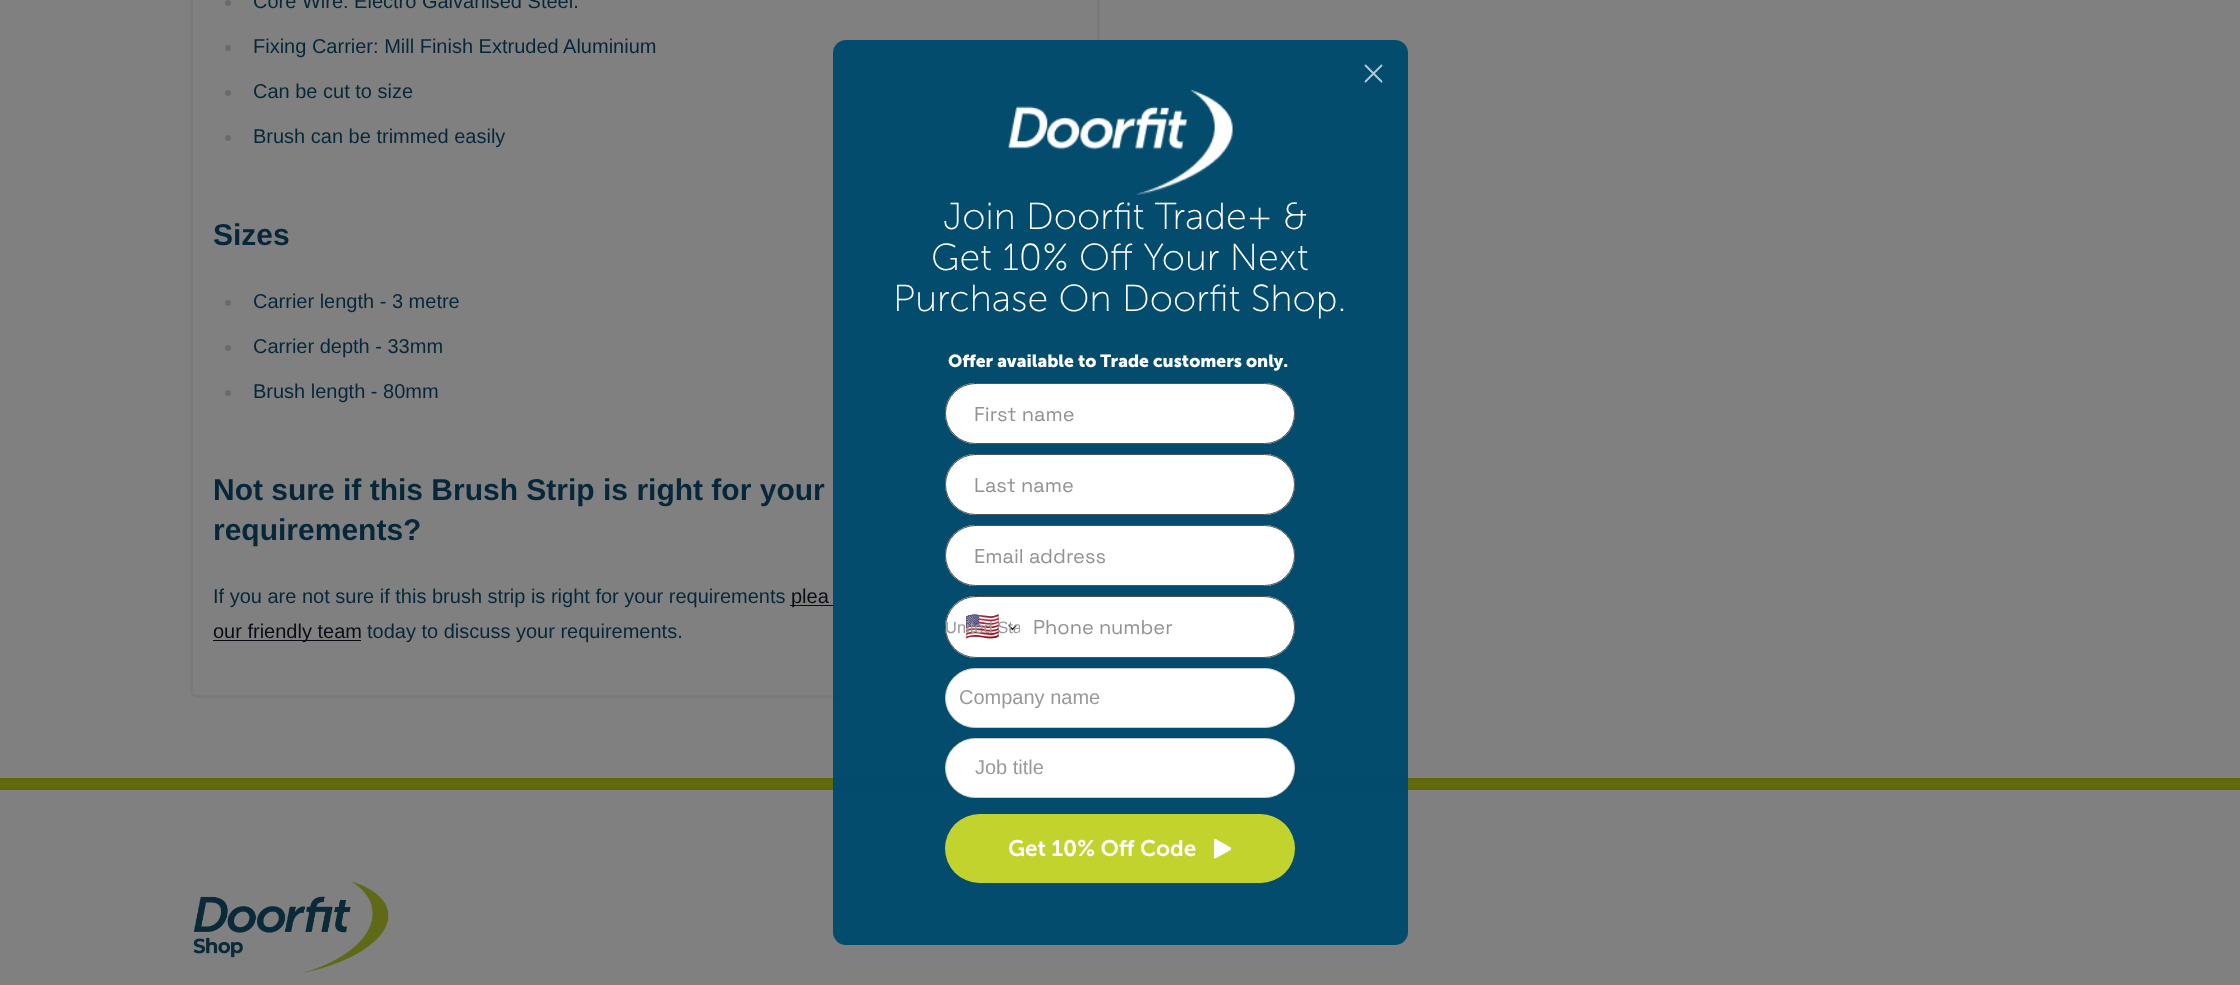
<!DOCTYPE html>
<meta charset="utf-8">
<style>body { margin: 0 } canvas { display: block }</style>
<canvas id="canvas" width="2240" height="985"></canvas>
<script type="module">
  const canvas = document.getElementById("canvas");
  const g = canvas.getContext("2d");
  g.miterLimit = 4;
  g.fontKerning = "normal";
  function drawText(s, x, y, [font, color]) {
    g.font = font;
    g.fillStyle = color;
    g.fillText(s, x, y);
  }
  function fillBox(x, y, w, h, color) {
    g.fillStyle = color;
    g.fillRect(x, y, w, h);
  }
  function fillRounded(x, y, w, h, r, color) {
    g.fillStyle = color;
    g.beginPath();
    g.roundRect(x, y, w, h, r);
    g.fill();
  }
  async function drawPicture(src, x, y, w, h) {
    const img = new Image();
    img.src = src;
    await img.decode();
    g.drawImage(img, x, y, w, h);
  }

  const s1 = ["20px Liberation Sans", "#062739"];
  const s2 = ["bold 30px Liberation Sans", "#062739"];
  const s3 = ["20px Liberation Sans", "#090C14"];
  const s4 = ["300 37.5px 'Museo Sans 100'", "#FFFFFF"];
  const s5 = ["bold 17.5px 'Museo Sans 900'", "#FFFFFF"];
  const s6 = ["20px Space Grotesk", "#929292"];
  const s7 = ["28px Noto Color Emoji", "#252525"];
  const s8 = ["16.5px Liberation Sans", "#999999"];
  const s9 = ["20px Liberation Sans", "#999999"];
  const s10 = ["600 22.5px 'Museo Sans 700'", "#FFFFFF"];

  fillBox(0, 0, 2240, 985, "#808080");
  g.beginPath();
  g.roundRect(191.5, -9.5, 907, 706, 6.5);
  g.strokeStyle = "#7A7A7A";
  g.lineWidth = 3;
  g.stroke();
  g.fillStyle = "#696B6E";
  g.beginPath();
  g.arc(228, 3, 3, 0, Math.PI * 2);
  g.fill();
  drawText("Core Wire: Electro Galvanised Steel.", 253, 8, s1);
  g.fillStyle = "#696B6E";
  g.beginPath();
  g.arc(228, 48, 3, 0, Math.PI * 2);
  g.fill();
  drawText("Fixing Carrier: Mill Finish Extruded Aluminium", 253, 53, s1);
  g.fillStyle = "#696B6E";
  g.beginPath();
  g.arc(228, 93, 3, 0, Math.PI * 2);
  g.fill();
  drawText("Can be cut to size", 253, 98, s1);
  g.fillStyle = "#696B6E";
  g.beginPath();
  g.arc(228, 138, 3, 0, Math.PI * 2);
  g.fill();
  drawText("Brush can be trimmed easily", 253, 143, s1);
  drawText("Sizes", 213, 245, s2);
  g.fillStyle = "#696B6E";
  g.beginPath();
  g.arc(228, 303, 3, 0, Math.PI * 2);
  g.fill();
  drawText("Carrier length - 3 metre", 253, 308, s1);
  g.fillStyle = "#696B6E";
  g.beginPath();
  g.arc(228, 348, 3, 0, Math.PI * 2);
  g.fill();
  drawText("Carrier depth - 33mm", 253, 353, s1);
  g.fillStyle = "#696B6E";
  g.beginPath();
  g.arc(228, 393, 3, 0, Math.PI * 2);
  g.fill();
  drawText("Brush length - 80mm", 253, 398, s1);
  drawText("Not sure if this Brush Strip is right for your", 213, 500, s2);
  drawText("requirements?", 213, 540, s2);
  drawText("If you are not sure if this brush strip is right for your requirements", 213, 603, s1);
  fillBox(790, 605, 130, 1, "#090C14");
  drawText("plea", 791, 603, s3);
  fillBox(213, 640, 148, 1, "#090C14");
  drawText("our friendly team", 213, 638, s3);
  drawText("today to discuss your requirements.", 367, 638, s1);
  fillBox(0, 778, 2240, 12, "#61690C");
  await drawPicture("pic1.png", 193, 881, 196, 92);
  fillRounded(833, 40, 575, 905, 13, "rgba(2, 75, 109, 0.99)");
  g.beginPath();
  g.moveTo(1365.5, 65.5);
  g.lineTo(1381.5, 81.5);
  g.moveTo(1381.5, 65.5);
  g.lineTo(1365.5, 81.5);
  g.strokeStyle = "#B3C9D3";
  g.lineWidth = 1.9;
  g.lineCap = "round";
  g.stroke();
  await drawPicture("pic2.png", 1008, 90, 225, 105);
  drawText("Join Doorfit Trade+ &", 943, 229, s4);
  drawText("Get 10% Off Your Next", 931, 270, s4);
  drawText("Purchase On Doorfit Shop.", 893, 311, s4);
  drawText("Offer available to Trade customers only.", 948, 367, s5);
  fillRounded(945, 383, 350, 61, 30.5, "#FFFFFF");
  g.beginPath();
  g.roundRect(945.5, 383.5, 349, 60, 30);
  g.strokeStyle = "rgba(37, 37, 37, 0.8)";
  g.lineWidth = 1;
  g.stroke();
  drawText("First name", 974, 421, s6);
  fillRounded(945, 454, 350, 61, 30.5, "#FFFFFF");
  g.beginPath();
  g.roundRect(945.5, 454.5, 349, 60, 30);
  g.stroke();
  drawText("Last name", 974, 492, s6);
  fillRounded(945, 525, 350, 61, 30.5, "#FFFFFF");
  g.beginPath();
  g.roundRect(945.5, 525.5, 349, 60, 30);
  g.stroke();
  drawText("Email address", 974, 563, s6);
  fillRounded(945, 596, 350, 62, 31, "#FFFFFF");
  g.beginPath();
  g.roundRect(945.5, 596.5, 349, 61, 30.5);
  g.stroke();
  drawText("🇺🇸", 965, 636, s7);
  g.beginPath();
  g.moveTo(1009, 625.5);
  g.lineTo(1012.5, 629.5);
  g.lineTo(1016, 625.5);
  g.strokeStyle = "#252525";
  g.lineWidth = 1.2;
  g.lineJoin = "round";
  g.stroke();
  g.save();
  g.beginPath();
  g.rect(945, 618, 75, 18);
  g.clip();
  drawText("United Sta", 945, 633, s8);
  g.restore();
  drawText("Phone number", 1033, 634, s6);
  g.fillStyle = "#FFFFFF";
  g.beginPath();
  g.roundRect(945.5, 668.5, 349, 59, 29.5);
  g.fill();
  g.strokeStyle = "#CCCCCC";
  g.lineWidth = 1;
  g.lineJoin = "miter";
  g.stroke();
  drawText("Company name", 959, 704, s9);
  g.fillStyle = "#FFFFFF";
  g.beginPath();
  g.roundRect(945.5, 738.5, 349, 59, 29.5);
  g.fill();
  g.stroke();
  drawText("Job title", 975, 774, s9);
  fillRounded(945, 814, 350, 69, 34.5, "#C2D32E");
  drawText("Get 10% Off Code", 1008, 856, s10);
  await drawPicture("pic3.png", 1214, 839, 17, 20);
</script>
